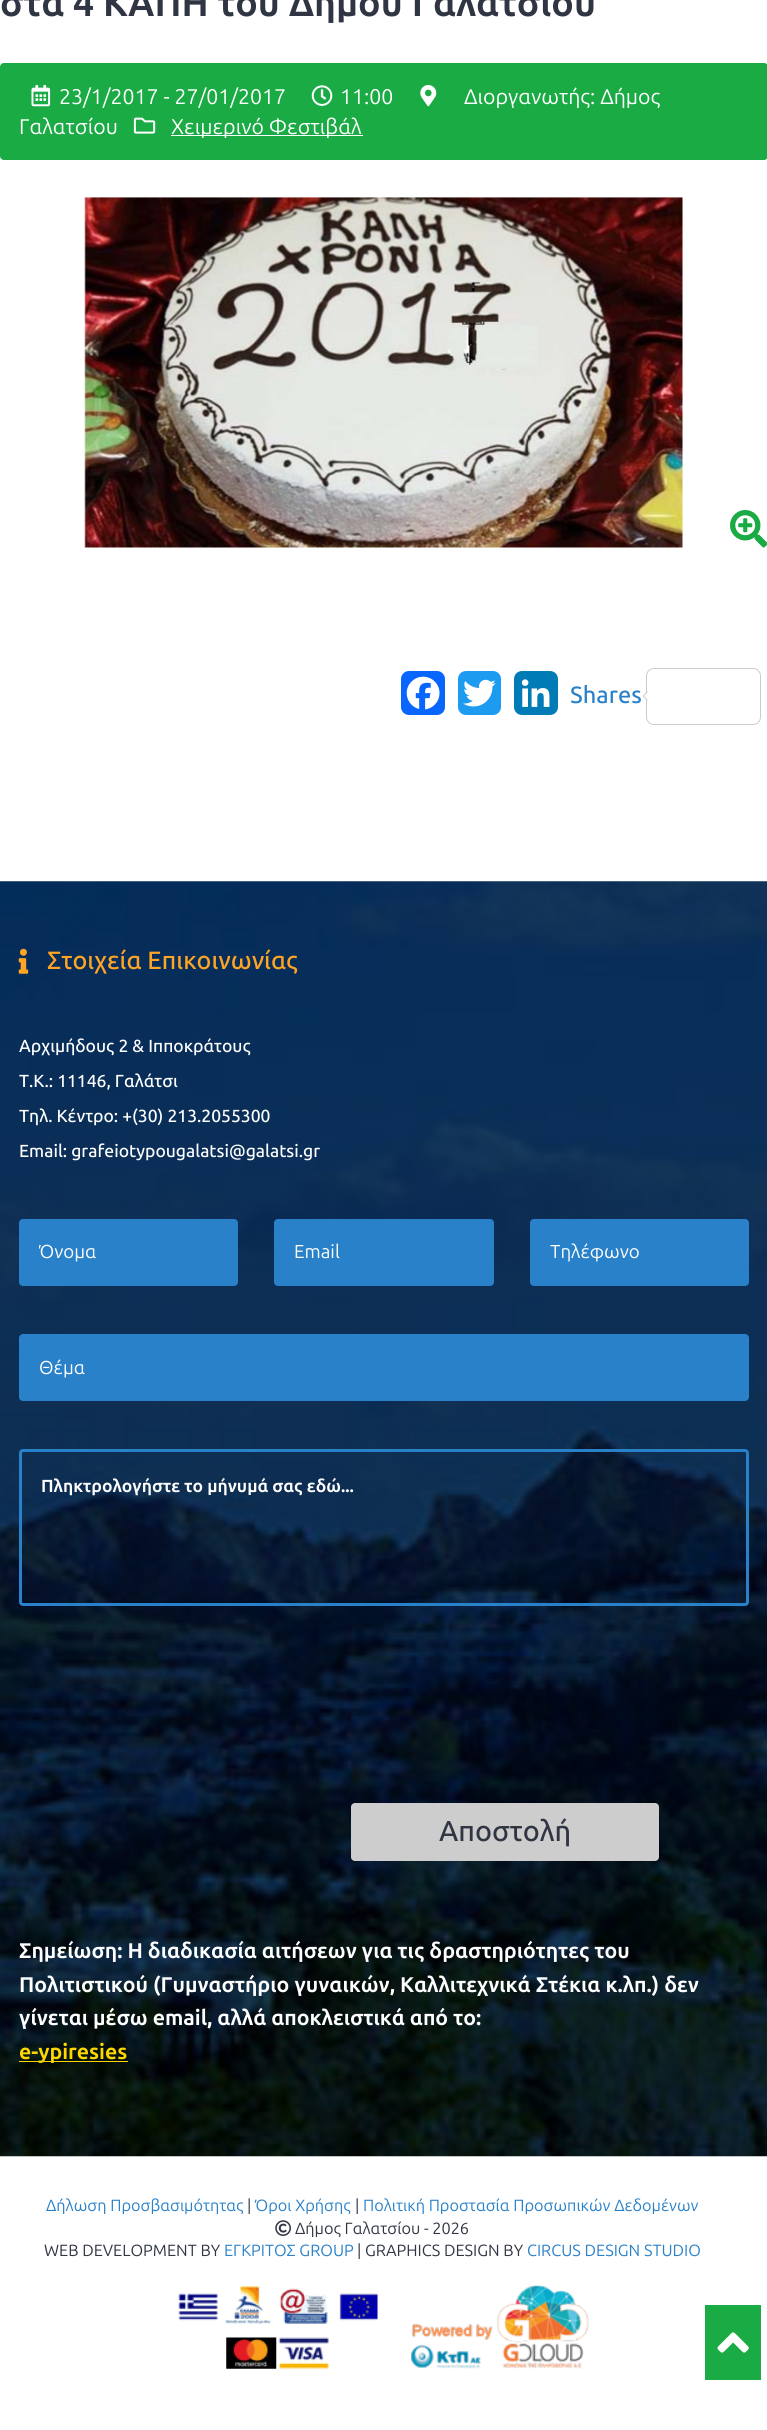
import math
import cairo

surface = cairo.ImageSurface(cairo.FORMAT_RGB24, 767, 2430)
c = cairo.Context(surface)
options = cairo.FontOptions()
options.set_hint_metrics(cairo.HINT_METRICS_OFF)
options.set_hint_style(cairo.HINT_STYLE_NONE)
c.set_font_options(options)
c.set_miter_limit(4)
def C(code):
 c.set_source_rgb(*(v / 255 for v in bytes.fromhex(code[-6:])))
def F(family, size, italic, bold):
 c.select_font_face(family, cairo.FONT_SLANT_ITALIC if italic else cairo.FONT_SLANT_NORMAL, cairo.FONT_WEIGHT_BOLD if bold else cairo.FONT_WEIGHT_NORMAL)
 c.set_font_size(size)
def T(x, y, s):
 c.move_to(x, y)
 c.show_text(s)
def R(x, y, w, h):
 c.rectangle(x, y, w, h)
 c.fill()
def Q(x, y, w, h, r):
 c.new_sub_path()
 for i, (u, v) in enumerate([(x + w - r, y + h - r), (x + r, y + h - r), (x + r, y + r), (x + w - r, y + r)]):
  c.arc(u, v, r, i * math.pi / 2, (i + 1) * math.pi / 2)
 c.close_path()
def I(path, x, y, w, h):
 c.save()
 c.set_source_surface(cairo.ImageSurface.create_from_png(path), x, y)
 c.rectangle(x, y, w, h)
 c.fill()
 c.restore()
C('ffffff')
c.paint()
F('Ubuntu',37.5,0,1)
C('2f3542')
T(0,16,'στα 4 ΚΑΠΗ του Δήμου Γαλατσίου')
C('1aab44')
Q(0,63,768,97,4)
c.fill()
I('1.png',31,85,20,22)
F('Ubuntu',21.25,0,0)
C('ffffff')
T(59,104,'23/1/2017 - 27/01/2017')
I('2.png',311,85,22,21)
T(340,104,'11:00')
I('3.png',420,85,17,22)
T(464,104,'Διοργανωτής: Δήμος')
T(19,134,'Γαλατσίου')
I('4.png',133,117,23,17)
R(171,135,192,1)
T(171,134,'Χειμερινό Φεστιβάλ')
I('5.png',84,197,599,351)
I('6.png',730,510,37,38)
C('0866ff')
Q(401,671,44,44,8)
c.fill()
I('7.png',406,676,34,34)
C('1d9bf0')
Q(458,671,43,44,8)
c.fill()
I('8.png',463,679,33,28)
C('007bb5')
Q(514,671,44,44,8)
c.fill()
I('9.png',521,679,29,28)
F('Ubuntu Medium',23.5,0,0)
C('2981c9')
T(570,703,'Shares')
Q(646.5,668.5,114,56,7.5)
C('cccccc')
c.set_line_width(1)
c.stroke()
c.new_path()
c.move_to(647.5,691)
c.line_to(647.5,701)
c.line_to(642.5,696)
c.close_path()
c.fill()
C('ffffff')
c.new_path()
c.move_to(649,691)
c.line_to(649,701)
c.line_to(644,696)
c.close_path()
c.fill()
I('10.png',0,881,767,1276)
I('11.png',18,948,11,26)
F('Ubuntu Medium',25,0,0)
C('ffa525')
T(47,969,'Στοιχεία Επικοινωνίας')
F('Ubuntu Medium',17.5,0,0)
C('ffffff')
T(19,1052,'Αρχιμήδους 2 & Ιπποκράτους')
T(19,1087,'Τ.Κ.: 11146, Γαλάτσι')
T(19,1122,'Τηλ. Κέντρο: +(30) 213.2055300')
T(19,1157,'Εmail: grafeiotypougalatsi@galatsi.gr')
C('2981c9')
Q(19,1219,219,67,4)
c.fill()
c.save()
c.rectangle(39,1241,179,22)
c.clip()
F('Ubuntu',18.75,0,0)
C('ffffff')
T(39,1258,'Όνομα')
c.restore()
Q(274,1219,220,67,4)
c.fill()
F('Ubuntu',18.75,0,0)
C('ffffff')
T(294,1258,'Email')
C('2981c9')
Q(530,1219,219,67,4)
c.fill()
C('ffffff')
T(550,1258,'Τηλέφωνο')
C('2981c9')
Q(19,1334,730,67,4)
c.fill()
C('ffffff')
T(39,1374,'Θέμα')
Q(20.5,1450.5,727,154,2.5)
C('2981c9')
c.set_line_width(3)
c.stroke()
F('Ubuntu',17.5,0,1)
C('ffffff')
T(41,1492,'Πληκτρολογήστε το μήνυμά σας εδώ...')
C('cdcdcd')
Q(351,1803,308,58,4)
c.fill()
F('Ubuntu Medium',28.75,0,0)
C('2f3542')
T(439,1841,'Αποστολή')
F('Ubuntu',21.25,0,1)
C('ffffff')
T(19,1958,'Σημείωση: Η διαδικασία αιτήσεων για τις δραστηριότητες του')
T(19,1992,'Πολιτιστικού (Γυμναστήριο γυναικών, Καλλιτεχνικά Στέκια κ.λπ.) δεν')
T(19,2025,'γίνεται μέσω email, αλλά αποκλειστικά από το:')
C('ffd700')
R(19,2061,109,1)
T(19,2059,'e-ypiresies')
F('Ubuntu',16.25,0,0)
C('2981c9')
T(46,2211,'Δήλωση Προσβασιμότητας')
C('2f3542')
T(247,2211,'|')
C('2981c9')
T(255,2211,'Όροι Χρήσης')
C('2f3542')
T(355,2211,'|')
C('2981c9')
T(363,2211,'Πολιτική Προστασία Προσωπικών Δεδομένων')
I('12.png',275,2220,16,16)
C('2f3542')
T(295,2234,'Δήμος Γαλατσίου - 2026')
T(44,2256,'WEB DEVELOPMENT BY')
C('2981c9')
T(224,2256,'ΕΓΚΡΙΤΟΣ GROUP')
C('2f3542')
T(357,2256,'| GRAPHICS DESIGN BY')
C('2981c9')
T(527,2256,'CIRCUS DESIGN STUDIO')
I('13.png',178,2286,201,38)
I('14.png',226,2337,51,32)
I('15.png',278,2337,51,32)
I('16.png',411,2285,178,84)
C('1aab44')
R(705,2305,56,75)
I('17.png',717,2332,32,21)
surface.write_to_png('o.png')
